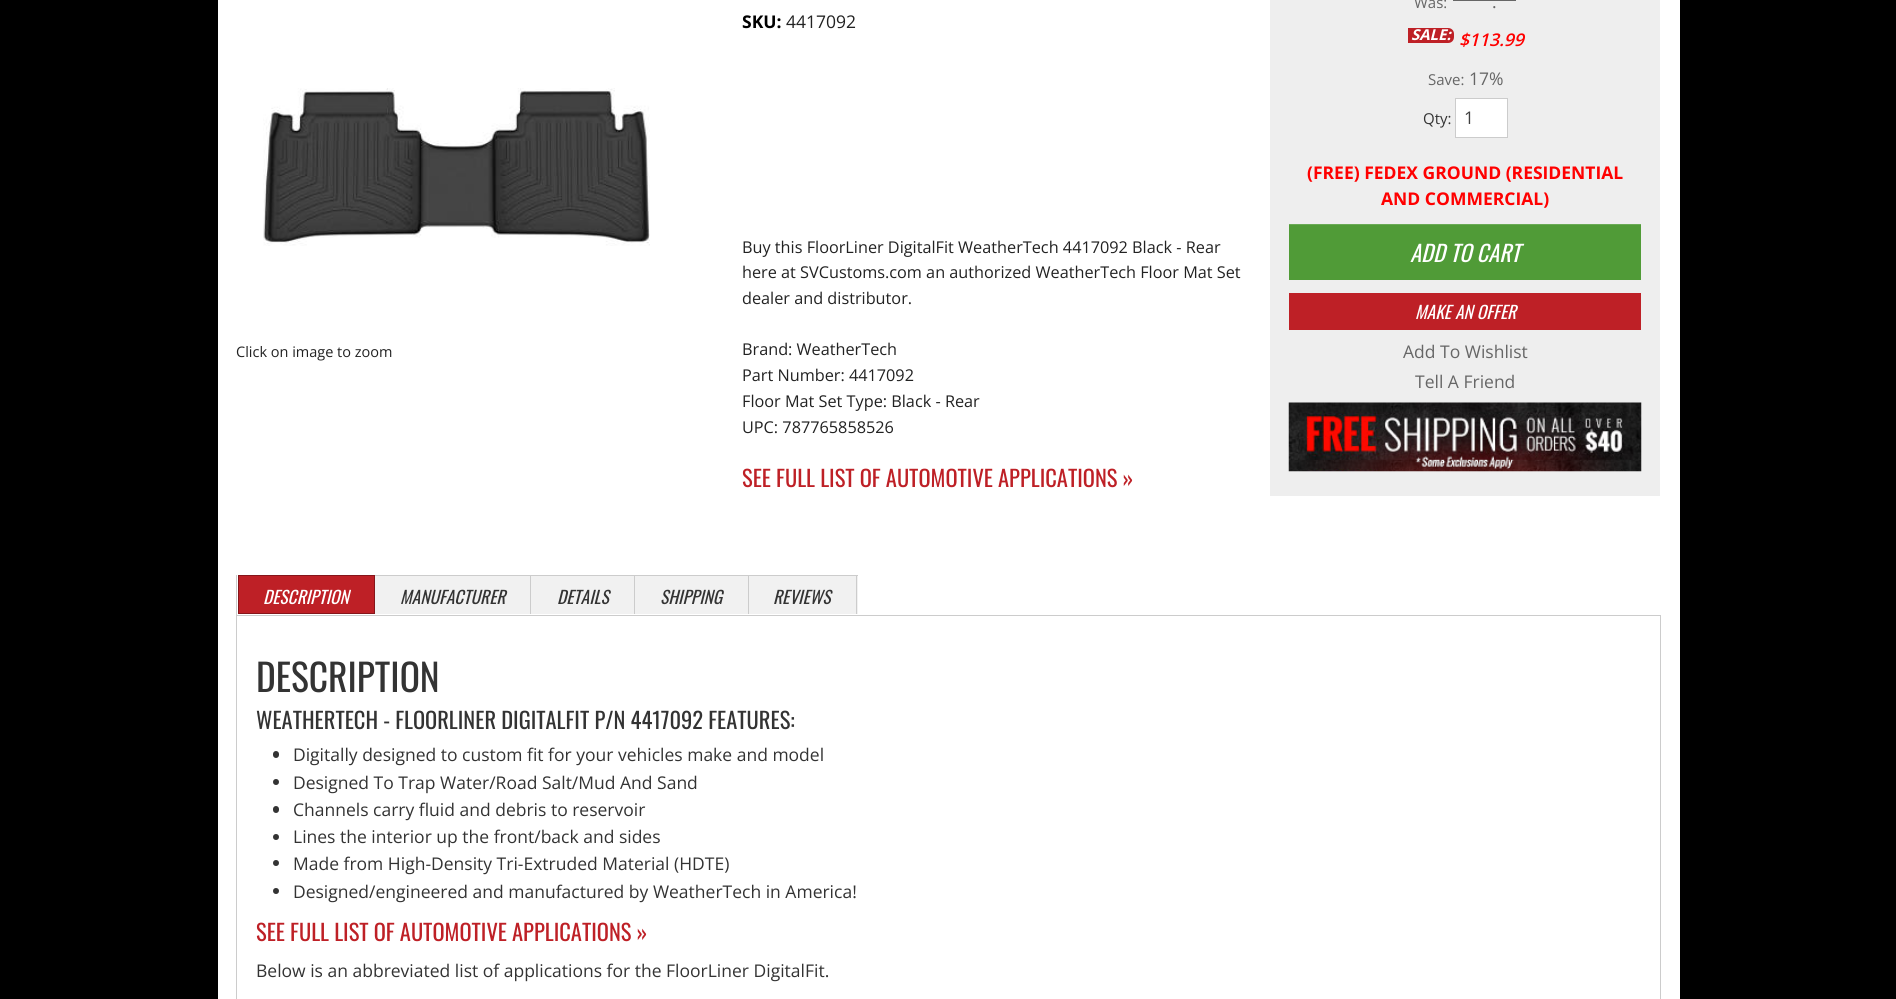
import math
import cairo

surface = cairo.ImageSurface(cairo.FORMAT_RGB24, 1896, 999)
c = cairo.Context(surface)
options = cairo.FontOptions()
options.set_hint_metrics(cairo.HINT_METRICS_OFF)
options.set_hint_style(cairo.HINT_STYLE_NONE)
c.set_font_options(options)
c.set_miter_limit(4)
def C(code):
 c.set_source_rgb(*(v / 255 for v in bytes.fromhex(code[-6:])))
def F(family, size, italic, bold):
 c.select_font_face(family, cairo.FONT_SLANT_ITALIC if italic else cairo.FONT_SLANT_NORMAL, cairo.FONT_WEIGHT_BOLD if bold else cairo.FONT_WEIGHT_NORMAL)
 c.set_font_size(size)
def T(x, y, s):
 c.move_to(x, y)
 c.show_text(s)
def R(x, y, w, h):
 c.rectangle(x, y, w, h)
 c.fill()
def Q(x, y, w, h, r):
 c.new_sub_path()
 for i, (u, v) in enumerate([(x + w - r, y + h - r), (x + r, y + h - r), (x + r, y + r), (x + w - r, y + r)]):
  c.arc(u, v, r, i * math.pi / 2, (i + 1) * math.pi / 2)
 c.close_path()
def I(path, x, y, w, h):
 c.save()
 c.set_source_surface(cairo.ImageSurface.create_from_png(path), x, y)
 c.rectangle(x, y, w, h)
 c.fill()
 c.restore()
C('000000')
c.paint()
C('ffffff')
R(218,0,1462,999)
I('1.png',263,88,387,158)
F('Open Sans',14.5,0,0)
C('222222')
T(236,357,'Click on image to zoom')
F('Open Sans',17.5,0,1)
C('000000')
T(742,28,'SKU:')
F('Open Sans',17.5,0,0)
C('222222')
T(786,28,'4417092')
F('Open Sans',16.25,0,0)
T(742,253,'Buy this FloorLiner DigitalFit WeatherTech 4417092 Black - Rear')
T(742,278,'here at SVCustoms.com an authorized WeatherTech Floor Mat Set')
T(742,304,'dealer and distributor.')
T(742,355,'Brand: WeatherTech')
T(742,381,'Part Number: 4417092')
T(742,407,'Floor Mat Set Type: Black - Rear')
T(742,433,'UPC: 787765858526')
F('Oswald',22.5,0,0)
C('be2026')
T(742,487,'SEE FULL LIST OF AUTOMOTIVE APPLICATIONS »')
C('eeeeee')
R(1270,0,390,496)
F('Open Sans',15,0,0)
C('666666')
T(1414,8,'Was:')
F('Open Sans',17.5,0,0)
T(1492,8,'.')
R(1453,0,63,1)
C('be2026')
c.new_path()
c.move_to(1408,28)
c.line_to(1448,28)
c.curve_to(1451.5,28,1454,30.5,1454,34)
c.line_to(1454,37)
c.curve_to(1454,40.5,1451.5,43,1448,43)
c.line_to(1408,43)
c.close_path()
c.fill()
F('Open Sans',15,1,1)
C('ffffff')
T(1411,40,'SALE:')
F('Open Sans SemiBold',17.5,1,0)
C('ff0000')
T(1459,46,'$113.99')
F('Open Sans',15,0,0)
C('666666')
T(1428,85,'Save:')
F('Open Sans',17.5,0,0)
T(1469,85,'17%')
F('Open Sans',15,0,0)
C('333333')
T(1423,124,'Qty:')
C('ffffff')
c.rectangle(1455.5,98.5,52,39)
c.fill_preserve()
C('cccccc')
c.set_line_width(1)
c.stroke()
F('Open Sans',17.5,0,0)
C('404040')
T(1464,124,'1')
F('Open Sans',17.5,0,1)
C('ff0000')
T(1307,179,'(FREE) FEDEX GROUND (RESIDENTIAL')
T(1381,205,'AND COMMERCIAL)')
C('509b37')
R(1289,225,352,55)
C('6aaa55')
R(1289,224,352,1)
F('Oswald',22.5,1,0)
C('ffffff')
T(1410,262,'ADD TO CART')
C('be2026')
R(1289,293,352,37)
F('Oswald',17.5,1,0)
C('ffffff')
T(1415,319,'MAKE AN OFFER')
F('Open Sans',17.5,0,0)
C('666666')
T(1403,358,'Add To Wishlist')
T(1415,388,'Tell A Friend')
I('2.png',1288,402,354,70)
C('cccccc')
R(236,575,1,40)
C('be2026')
c.rectangle(238.5,575.5,136,38)
c.fill_preserve()
C('85161b')
c.stroke()
F('Oswald',17.5,1,0)
C('ffffff')
T(263,604,'DESCRIPTION')
C('f1f1f1')
R(375,576,155,38)
C('cccccc')
R(375,575,483,1)
R(530,575,1,39)
C('333333')
T(400,604,'MANUFACTURER')
C('f1f1f1')
R(531,576,103,38)
C('cccccc')
R(634,575,1,39)
C('333333')
T(557,604,'DETAILS')
C('f1f1f1')
R(635,576,113,38)
C('cccccc')
R(748,575,1,39)
C('333333')
T(660,604,'SHIPPING')
C('f1f1f1')
R(749,576,109,38)
C('cccccc')
R(856,575,1,39)
C('333333')
T(773,604,'REVIEWS')
c.rectangle(236.5,615.5,1424,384)
C('cccccc')
c.stroke()
F('Oswald',37.5,0,0)
C('333333')
T(256,692,'DESCRIPTION')
F('Oswald',22.5,0,0)
T(256,729,'WEATHERTECH - FLOORLINER DIGITALFIT P/N 4417092 FEATURES:')
Q(273,751,6,7,3)
c.fill()
F('Open Sans',17.5,0,0)
T(293,761,'Digitally designed to custom fit for your vehicles make and model')
c.new_path()
c.arc(276,782,3,0,2 * math.pi)
c.fill()
T(293,789,'Designed To Trap Water/Road Salt/Mud And Sand')
Q(273,806,6,7,3)
c.fill()
T(293,816,'Channels carry fluid and debris to reservoir')
c.new_path()
c.arc(276,837,3,0,2 * math.pi)
c.fill()
T(293,843,'Lines the interior up the front/back and sides')
c.new_path()
c.arc(276,863,3,0,2 * math.pi)
c.fill()
T(293,870,'Made from High-Density Tri-Extruded Material (HDTE)')
c.new_path()
c.arc(276,891,3,0,2 * math.pi)
c.fill()
T(293,898,'Designed/engineered and manufactured by WeatherTech in America!')
F('Oswald',22.5,0,0)
C('be2026')
T(256,941,'SEE FULL LIST OF AUTOMOTIVE APPLICATIONS »')
F('Open Sans',17.5,0,0)
C('333333')
T(256,977,'Below is an abbreviated list of applications for the FloorLiner DigitalFit.')
surface.write_to_png('o.png')
